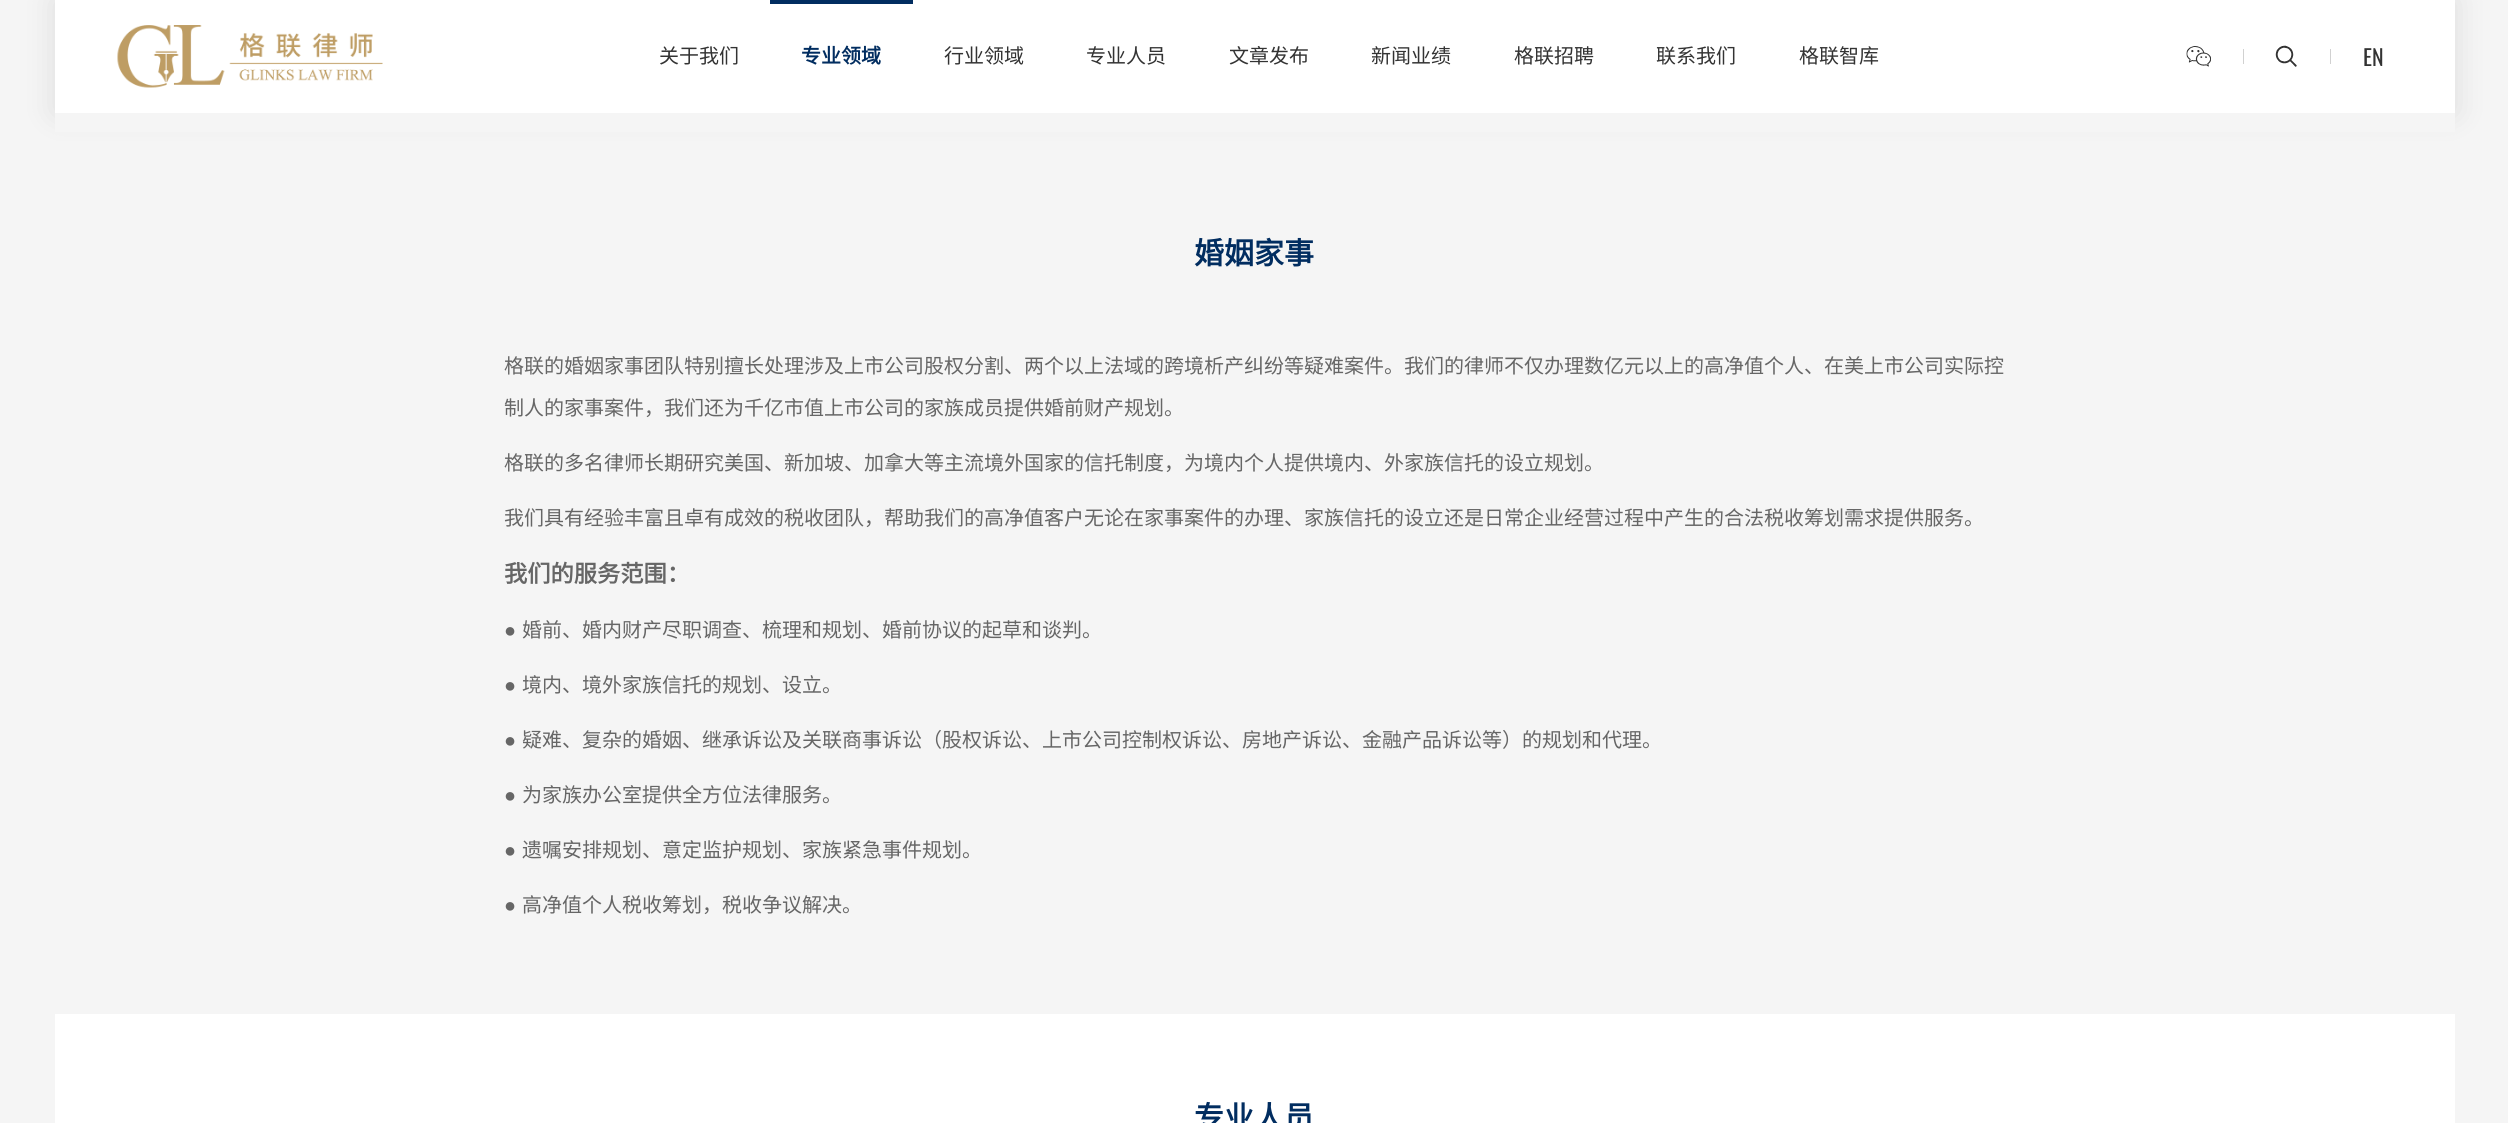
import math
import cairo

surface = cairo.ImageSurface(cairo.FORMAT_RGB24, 2508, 1123)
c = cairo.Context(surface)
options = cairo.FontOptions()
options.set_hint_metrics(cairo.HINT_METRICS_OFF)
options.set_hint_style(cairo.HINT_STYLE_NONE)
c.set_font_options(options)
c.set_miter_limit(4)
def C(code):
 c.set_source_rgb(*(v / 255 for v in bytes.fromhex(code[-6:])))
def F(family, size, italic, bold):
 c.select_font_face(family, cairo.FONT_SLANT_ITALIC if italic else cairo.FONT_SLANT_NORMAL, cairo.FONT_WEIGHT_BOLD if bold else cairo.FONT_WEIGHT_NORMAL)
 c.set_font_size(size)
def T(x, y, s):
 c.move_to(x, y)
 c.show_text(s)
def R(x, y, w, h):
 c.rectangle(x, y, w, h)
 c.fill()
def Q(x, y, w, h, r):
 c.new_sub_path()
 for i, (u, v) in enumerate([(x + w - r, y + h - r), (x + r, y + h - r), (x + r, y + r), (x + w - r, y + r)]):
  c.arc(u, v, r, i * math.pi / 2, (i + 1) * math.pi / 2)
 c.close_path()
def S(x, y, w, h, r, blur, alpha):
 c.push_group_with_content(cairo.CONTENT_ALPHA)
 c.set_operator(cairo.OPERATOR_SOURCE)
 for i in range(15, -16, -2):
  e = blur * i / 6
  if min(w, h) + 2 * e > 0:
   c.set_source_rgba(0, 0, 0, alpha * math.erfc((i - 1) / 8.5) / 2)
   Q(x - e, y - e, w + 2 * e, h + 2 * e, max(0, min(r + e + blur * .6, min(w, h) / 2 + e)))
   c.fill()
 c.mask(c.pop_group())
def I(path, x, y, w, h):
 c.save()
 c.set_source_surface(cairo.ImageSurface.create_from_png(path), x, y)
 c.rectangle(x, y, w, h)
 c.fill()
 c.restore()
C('f5f5f5')
c.paint()
C('ffffff')
R(55,1014,2400,109)
C('000000')
S(55,0,2400,113,0,15.5,.1)
C('ffffff')
R(55,0,2400,113)
I('1.png',117,25,266,63)
F('Noto Sans CJK SC',20,0,0)
C('333333')
T(659,63,'关于我们')
C('012d60')
R(770,0,143,4)
F('Noto Sans CJK SC',20,0,1)
T(801,63,'专业领域')
F('Noto Sans CJK SC',20,0,0)
C('333333')
T(944,63,'行业领域')
T(1086,63,'专业人员')
T(1229,63,'文章发布')
T(1371,63,'新闻业绩')
T(1514,63,'格联招聘')
T(1656,63,'联系我们')
T(1799,63,'格联智库')
I('2.png',2186,46,25,21)
C('d1d1d1')
R(2243,49,1,15)
I('3.png',2275,45,22,22)
R(2330,49,1,15)
F('Oswald',22,0,0)
C('333333')
T(2363,66,'EN')
C('f5f5f5')
R(55,113,2400,19)
F('Noto Sans CJK SC',30,0,1)
C('012d60')
T(1194,264,'婚姻家事')
F('Noto Sans CJK SC',20,0,0)
C('666666')
T(504,373,'格联的婚姻家事团队特别擅长处理涉及上市公司股权分割、两个以上法域的跨境析产纠纷等疑难案件。我们的律师不仅办理数亿元以上的高净值个人、在美上市公司实际控')
T(504,415,'制人的家事案件，我们还为千亿市值上市公司的家族成员提供婚前财产规划。')
T(504,470,'格联的多名律师长期研究美国、新加坡、加拿大等主流境外国家的信托制度，为境内个人提供境内、外家族信托的设立规划。')
T(504,525,'我们具有经验丰富且卓有成效的税收团队，帮助我们的高净值客户无论在家事案件的办理、家族信托的设立还是日常企业经营过程中产生的合法税收筹划需求提供服务。')
F('Noto Sans CJK SC',23.25,0,1)
T(504,582,'我们的服务范围：')
F('Liberation Sans',20,0,0)
T(504,637,'●')
F('Noto Sans CJK SC',20,0,0)
T(522,637,'婚前、婚内财产尽职调查、梳理和规划、婚前协议的起草和谈判。')
F('Liberation Sans',20,0,0)
T(504,692,'●')
F('Noto Sans CJK SC',20,0,0)
T(522,692,'境内、境外家族信托的规划、设立。')
F('Liberation Sans',20,0,0)
T(504,747,'●')
F('Noto Sans CJK SC',20,0,0)
T(522,747,'疑难、复杂的婚姻、继承诉讼及关联商事诉讼（股权诉讼、上市公司控制权诉讼、房地产诉讼、金融产品诉讼等）的规划和代理。')
F('Liberation Sans',20,0,0)
T(504,802,'●')
F('Noto Sans CJK SC',20,0,0)
T(522,802,'为家族办公室提供全方位法律服务。')
F('Liberation Sans',20,0,0)
T(504,857,'●')
F('Noto Sans CJK SC',20,0,0)
T(522,857,'遗嘱安排规划、意定监护规划、家族紧急事件规划。')
F('Liberation Sans',20,0,0)
T(504,912,'●')
F('Noto Sans CJK SC',20,0,0)
T(522,912,'高净值个人税收筹划，税收争议解决。')
F('Noto Sans CJK SC',30,0,1)
C('012d60')
T(1194,1128,'专业人员')
surface.write_to_png('o.png')
